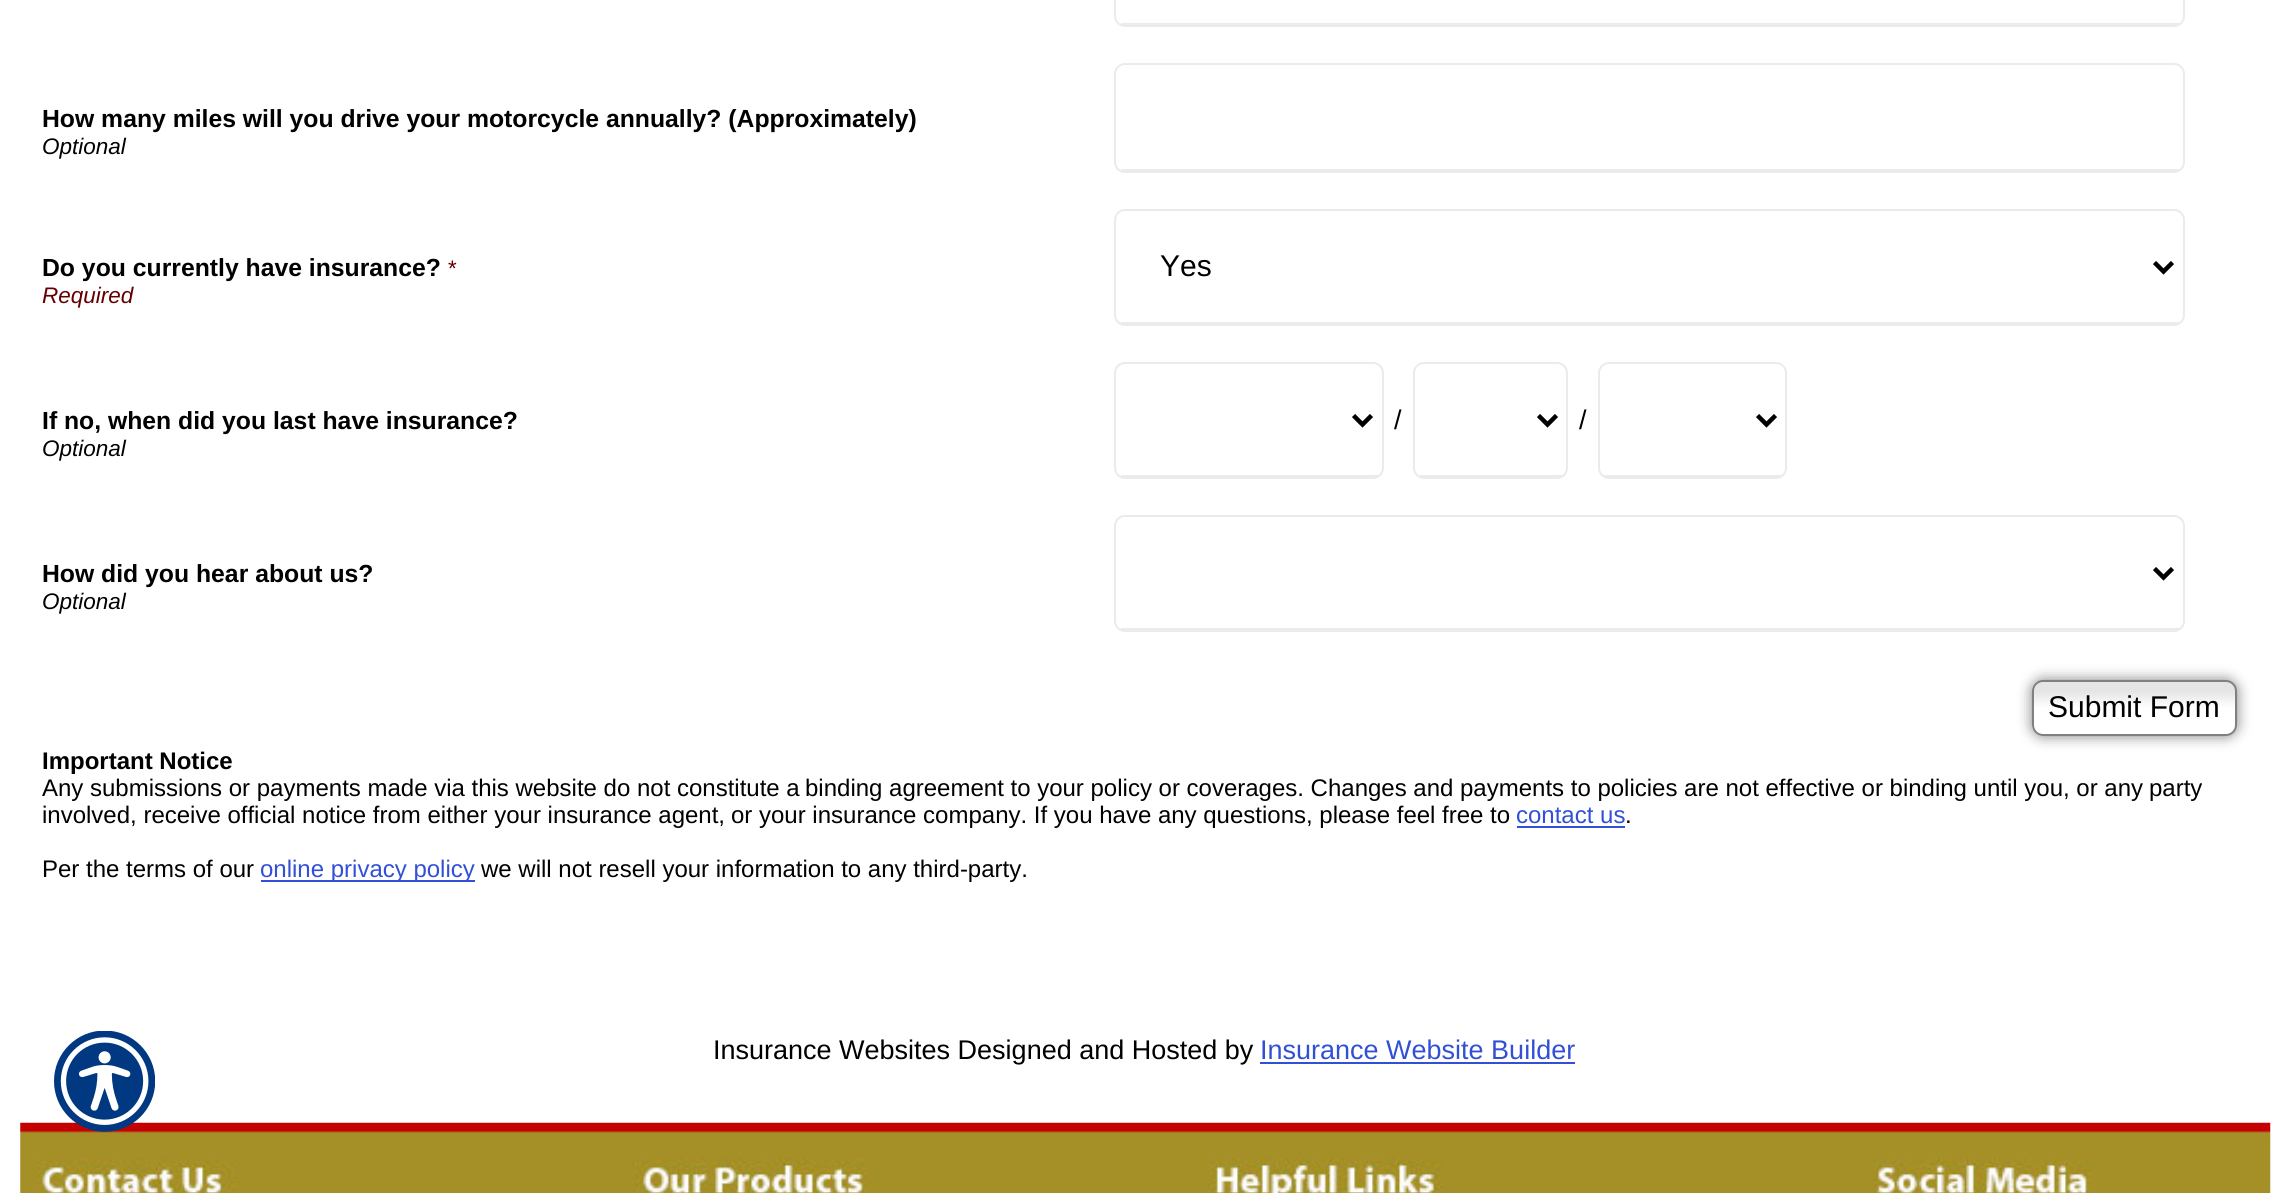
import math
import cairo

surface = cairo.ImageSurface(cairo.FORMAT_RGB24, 2287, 1193)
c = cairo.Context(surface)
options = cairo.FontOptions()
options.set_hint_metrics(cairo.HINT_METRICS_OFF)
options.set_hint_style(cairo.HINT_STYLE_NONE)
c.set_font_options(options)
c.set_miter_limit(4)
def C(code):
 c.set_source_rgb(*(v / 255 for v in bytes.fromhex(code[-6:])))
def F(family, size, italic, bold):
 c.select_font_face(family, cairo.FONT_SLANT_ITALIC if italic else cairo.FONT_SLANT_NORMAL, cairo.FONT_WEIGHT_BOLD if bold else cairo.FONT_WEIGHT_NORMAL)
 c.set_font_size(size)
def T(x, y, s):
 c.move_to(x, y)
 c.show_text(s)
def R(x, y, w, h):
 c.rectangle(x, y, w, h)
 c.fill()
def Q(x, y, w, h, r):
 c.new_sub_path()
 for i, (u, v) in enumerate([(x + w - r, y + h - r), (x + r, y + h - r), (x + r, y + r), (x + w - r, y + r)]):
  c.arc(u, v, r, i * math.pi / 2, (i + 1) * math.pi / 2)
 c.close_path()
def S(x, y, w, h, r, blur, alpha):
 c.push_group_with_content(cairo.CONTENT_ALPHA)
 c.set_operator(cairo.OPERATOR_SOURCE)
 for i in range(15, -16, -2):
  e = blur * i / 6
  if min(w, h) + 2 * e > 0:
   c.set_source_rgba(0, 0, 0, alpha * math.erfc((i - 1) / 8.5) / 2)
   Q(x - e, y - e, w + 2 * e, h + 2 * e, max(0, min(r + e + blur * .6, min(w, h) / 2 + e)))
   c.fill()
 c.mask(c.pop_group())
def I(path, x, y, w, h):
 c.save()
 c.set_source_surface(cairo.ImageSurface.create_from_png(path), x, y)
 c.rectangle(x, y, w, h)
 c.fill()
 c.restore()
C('ffffff')
c.paint()
Q(1115,-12,1069,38,10)
C('ebebeb')
c.stroke()
R(1121,23,1059,2)
F('Liberation Sans',24.75,0,1)
C('000000')
T(42,127,'How many miles will you drive your motorcycle annually? (Approximately)')
F('Liberation Sans',22.5,1,0)
T(42,154,'Optional')
Q(1115,64,1069,108,10)
C('ebebeb')
c.stroke()
R(1121,169,1059,2)
F('Liberation Sans',24.75,0,1)
C('000000')
T(42,276,'Do you currently have insurance?')
F('Liberation Sans',22.5,1,0)
C('660000')
T(42,303,'Required')
T(447,276,'*')
Q(1115,210,1069,115,10)
C('ebebeb')
c.stroke()
R(1121,322,1059,2)
c.new_path()
c.move_to(2154.5,262.5)
c.line_to(2163.5,271.5)
c.line_to(2172.5,262.5)
C('000000')
c.set_line_width(4.5)
c.stroke()
F('Liberation Sans',30,0,0)
T(1160,276,'Yes')
F('Liberation Sans',24.75,0,1)
T(42,429,'If no, when did you last have insurance?')
F('Liberation Sans',22.5,1,0)
T(42,456,'Optional')
Q(1115,363,268,115,10)
C('ebebeb')
c.set_line_width(2)
c.stroke()
R(1121,475,258,2)
c.new_path()
c.move_to(1353.5,415.5)
c.line_to(1362.5,424.5)
c.line_to(1371.5,415.5)
C('000000')
c.set_line_width(4.5)
c.stroke()
F('Liberation Sans',27,0,0)
T(1394,429,'/')
Q(1414,363,153,115,10)
C('ebebeb')
c.set_line_width(2)
c.stroke()
R(1420,475,144,2)
c.new_path()
c.move_to(1538.5,415.5)
c.line_to(1547.5,424.5)
c.line_to(1556.5,415.5)
C('000000')
c.set_line_width(4.5)
c.stroke()
T(1579,429,'/')
Q(1599,363,187,115,10)
C('ebebeb')
c.set_line_width(2)
c.stroke()
R(1604,475,178,2)
c.new_path()
c.move_to(1757.5,415.5)
c.line_to(1766.5,424.5)
c.line_to(1775.5,415.5)
C('000000')
c.set_line_width(4.5)
c.stroke()
F('Liberation Sans',24.75,0,1)
T(42,582,'How did you hear about us?')
F('Liberation Sans',22.5,1,0)
T(42,609,'Optional')
Q(1115,516,1069,115,10)
C('ebebeb')
c.set_line_width(2)
c.stroke()
R(1121,628,1059,2)
c.new_path()
c.move_to(2154.5,568.5)
c.line_to(2163.5,577.5)
c.line_to(2172.5,568.5)
C('000000')
c.set_line_width(4.5)
c.stroke()
C('808080')
S(2032,680,205,56,11,7,1)
I('1.png',2032,681,205,55)
Q(2033,681,203,54,10)
C('808080')
c.set_line_width(2)
c.stroke()
F('Liberation Sans',30,0,0)
C('000000')
T(2048,717,'Submit Form')
F('Liberation Sans',24,0,1)
T(42,769,'Important Notice')
F('Liberation Sans',24,0,0)
T(42,796,'Any submissions or payments made via this website do not constitute a')
T(805,796,'binding agreement to your policy or coverages. Changes and')
T(1460,796,'payments to policies are not effective or binding until you, or any')
T(2149,796,'party')
T(42,823,'involved, receive official notice from either your insurance agent,')
T(731,823,'or your insurance company. If you have any questions, please feel free to')
C('3250d6')
T(1516,823,'contact us')
R(1517,826,108,2)
C('000000')
T(1625,823,'.')
T(42,877,'Per the terms of our')
C('3250d6')
R(261,880,214,2)
T(260,877,'online privacy policy')
C('000000')
T(481,877,'we will not resell your information to any third-party.')
F('Liberation Sans',27,0,0)
T(713,1059,'Insurance Websites Designed and Hosted by')
C('3250d6')
T(1260,1059,'Insurance Website Builder')
R(1260,1062,315,2)
I('2.png',20,1122,2251,71)
I('3.png',54,1031,101,101)
surface.write_to_png('o.png')
